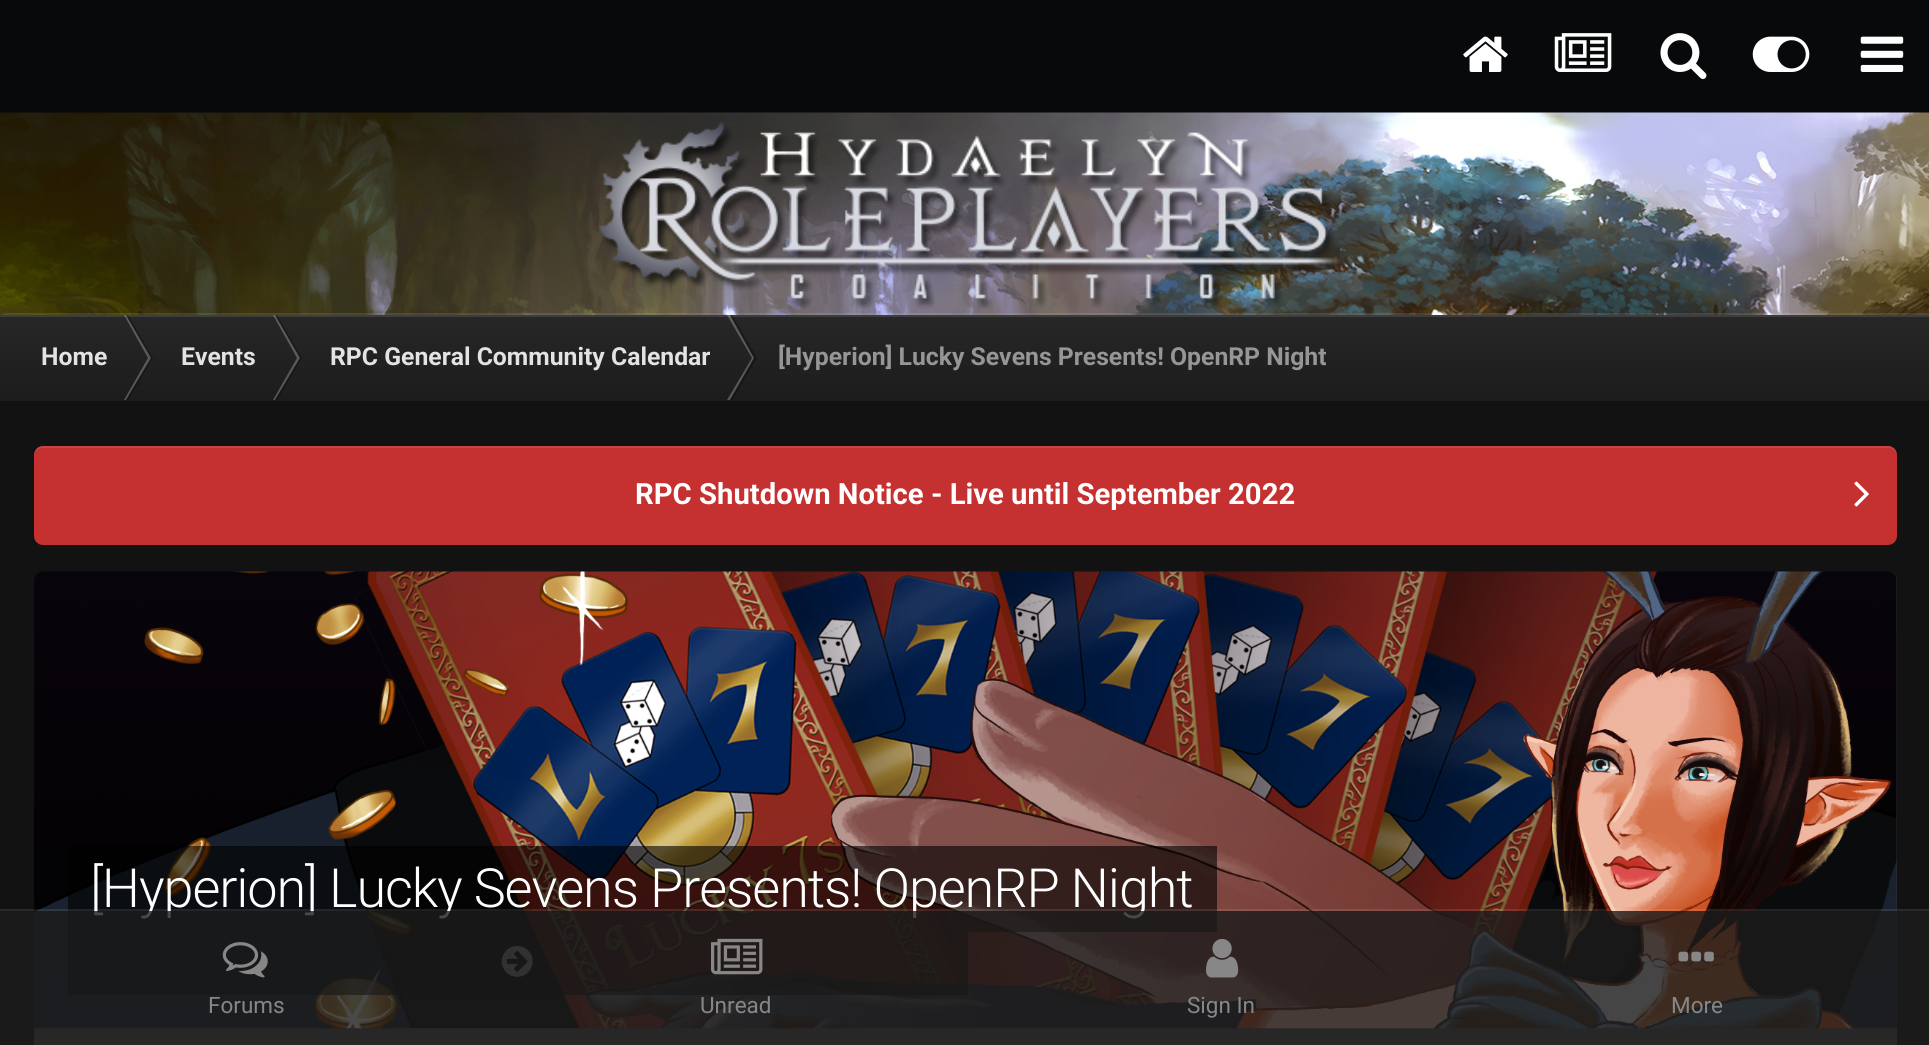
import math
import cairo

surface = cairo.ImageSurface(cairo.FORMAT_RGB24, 1929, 1045)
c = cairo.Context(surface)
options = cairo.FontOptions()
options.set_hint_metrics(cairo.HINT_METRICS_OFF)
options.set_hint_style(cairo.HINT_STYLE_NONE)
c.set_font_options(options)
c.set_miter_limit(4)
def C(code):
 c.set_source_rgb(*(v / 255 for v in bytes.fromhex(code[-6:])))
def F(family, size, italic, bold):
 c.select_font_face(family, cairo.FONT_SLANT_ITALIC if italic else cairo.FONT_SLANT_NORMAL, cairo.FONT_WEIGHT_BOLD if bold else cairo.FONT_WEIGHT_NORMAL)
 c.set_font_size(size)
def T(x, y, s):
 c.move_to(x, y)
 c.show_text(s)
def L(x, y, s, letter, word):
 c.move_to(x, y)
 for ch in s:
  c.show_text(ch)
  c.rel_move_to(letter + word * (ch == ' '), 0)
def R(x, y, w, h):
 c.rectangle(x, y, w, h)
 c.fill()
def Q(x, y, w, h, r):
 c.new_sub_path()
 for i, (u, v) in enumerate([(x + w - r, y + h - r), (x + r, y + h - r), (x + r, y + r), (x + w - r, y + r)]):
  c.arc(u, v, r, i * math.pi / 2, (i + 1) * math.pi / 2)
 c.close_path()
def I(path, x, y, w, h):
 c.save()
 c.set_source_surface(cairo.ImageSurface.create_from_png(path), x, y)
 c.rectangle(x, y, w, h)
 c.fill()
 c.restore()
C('07090a')
c.paint()
I('1.png',1463,36,45,36)
I('2.png',1554,33,58,39)
I('3.png',1660,33,47,46)
I('4.png',1752,36,58,36)
I('5.png',1860,36,44,36)
I('6.png',0,112,1929,203)
I('7.png',598,122,745,187)
Q(-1,314,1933,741,8)
c.set_source_rgba(1,1,1,0.1)
c.stroke()
C('121212')
R(0,401,1929,644)
gradient = cairo.LinearGradient(965,315,965,401)
gradient.add_color_stop_rgba(0,0.153,0.153,0.153,1)
gradient.add_color_stop_rgba(1,0.11,0.11,0.11,1)
c.set_source(gradient)
R(0,317,1929,84)
C('3d3d3d')
R(0,315,1929,2)
F('Roboto',24.75,0,1)
C('e3e3e3')
T(41,365,'Home')
c.set_source_rgba(1,1,1,0.25)
c.new_path()
c.move_to(124,315)
c.line_to(126,315)
c.line_to(151,358)
c.line_to(148,358)
c.close_path()
c.fill()
c.set_source_rgba(0,0,0,0.3)
c.new_path()
c.move_to(126,315)
c.line_to(128,315)
c.line_to(153,358)
c.line_to(151,358)
c.close_path()
c.fill()
c.set_source_rgba(1,1,1,0.25)
c.new_path()
c.move_to(124,400)
c.line_to(126,400)
c.line_to(151,358)
c.line_to(148,358)
c.close_path()
c.fill()
c.set_source_rgba(0,0,0,0.3)
c.new_path()
c.move_to(126,400)
c.line_to(128,400)
c.line_to(153,358)
c.line_to(151,358)
c.close_path()
c.fill()
C('e3e3e3')
T(181,365,'Events')
c.set_source_rgba(1,1,1,0.25)
c.new_path()
c.move_to(273,315)
c.line_to(275,315)
c.line_to(300,358)
c.line_to(297,358)
c.close_path()
c.fill()
c.set_source_rgba(0,0,0,0.3)
c.new_path()
c.move_to(275,315)
c.line_to(277,315)
c.line_to(302,358)
c.line_to(300,358)
c.close_path()
c.fill()
c.set_source_rgba(1,1,1,0.25)
c.new_path()
c.move_to(273,400)
c.line_to(275,400)
c.line_to(300,358)
c.line_to(297,358)
c.close_path()
c.fill()
c.set_source_rgba(0,0,0,0.3)
c.new_path()
c.move_to(275,400)
c.line_to(277,400)
c.line_to(302,358)
c.line_to(300,358)
c.close_path()
c.fill()
C('e3e3e3')
T(330,365,'RPC General Community Calendar')
c.set_source_rgba(1,1,1,0.25)
c.new_path()
c.move_to(727,315)
c.line_to(730,315)
c.line_to(754,358)
c.line_to(752,358)
c.close_path()
c.fill()
c.set_source_rgba(0,0,0,0.3)
c.new_path()
c.move_to(730,315)
c.line_to(732,315)
c.line_to(757,358)
c.line_to(754,358)
c.close_path()
c.fill()
c.set_source_rgba(1,1,1,0.25)
c.new_path()
c.move_to(727,400)
c.line_to(730,400)
c.line_to(754,358)
c.line_to(752,358)
c.close_path()
c.fill()
c.set_source_rgba(0,0,0,0.3)
c.new_path()
c.move_to(730,400)
c.line_to(732,400)
c.line_to(757,358)
c.line_to(754,358)
c.close_path()
c.fill()
C('969696')
T(778,365,'[Hyperion] Lucky Sevens Presents! OpenRP Night')
C('c53030')
Q(34,446,1863,99,9)
c.fill()
c.set_source_rgba(1,1,1,0.1)
c.new_path()
c.move_to(43,448)
c.line_to(1888,448)
c.curve_to(1893,448,1897,452,1897,457)
c.curve_to(1897,451,1894,446,1888,446)
c.line_to(43,446)
c.curve_to(37,446,34,451,34,457)
c.curve_to(34,452,38,448,43,448)
c.close_path()
c.fill()
F('Roboto',29.25,0,1)
C('ffffff')
T(635,504,'RPC Shutdown Notice - Live until September 2022')
I('8.png',1854,481,15,26)
C('333333')
c.new_path()
c.move_to(43,572)
c.line_to(1888,572)
c.curve_to(1893,572,1897,576,1897,581)
c.line_to(1897,1028)
c.line_to(34,1028)
c.line_to(34,581)
c.curve_to(34,576,38,572,43,572)
c.close_path()
c.fill()
C('545454')
R(34,1028,1863,17)
I('9.png',34,571,1863,458)
c.set_source_rgba(0,0,0,0.6)
R(68,846,1149,86)
F('Roboto Light',54,0,0)
C('ffffff')
L(90,907,'[Hyperion] Lucky Sevens Presents! OpenRP Night',-1.1,0)
c.set_source_rgba(0,0,0,0.6)
R(68,932,900,63)
I('10.png',501,946,32,31)
c.set_source_rgba(1,1,1,0.1)
c.new_path()
c.move_to(0,909)
c.line_to(0,911)
c.line_to(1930,911)
c.line_to(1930,1044)
c.line_to(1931,1044)
c.line_to(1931,909)
c.close_path()
c.fill()
c.set_source_rgba(0.11,0.11,0.11,0.8)
R(0,911,1929,134)
I('11.png',222,942,46,36)
F('Roboto',22.5,0,0)
C('878787')
T(208,1013,'Forums')
I('12.png',711,938,52,37)
T(700,1013,'Unread')
I('13.png',1206,938,33,40)
T(1187,1013,'Sign In')
I('14.png',1678,951,36,11)
T(1671,1013,'More')
surface.write_to_png('o.png')
